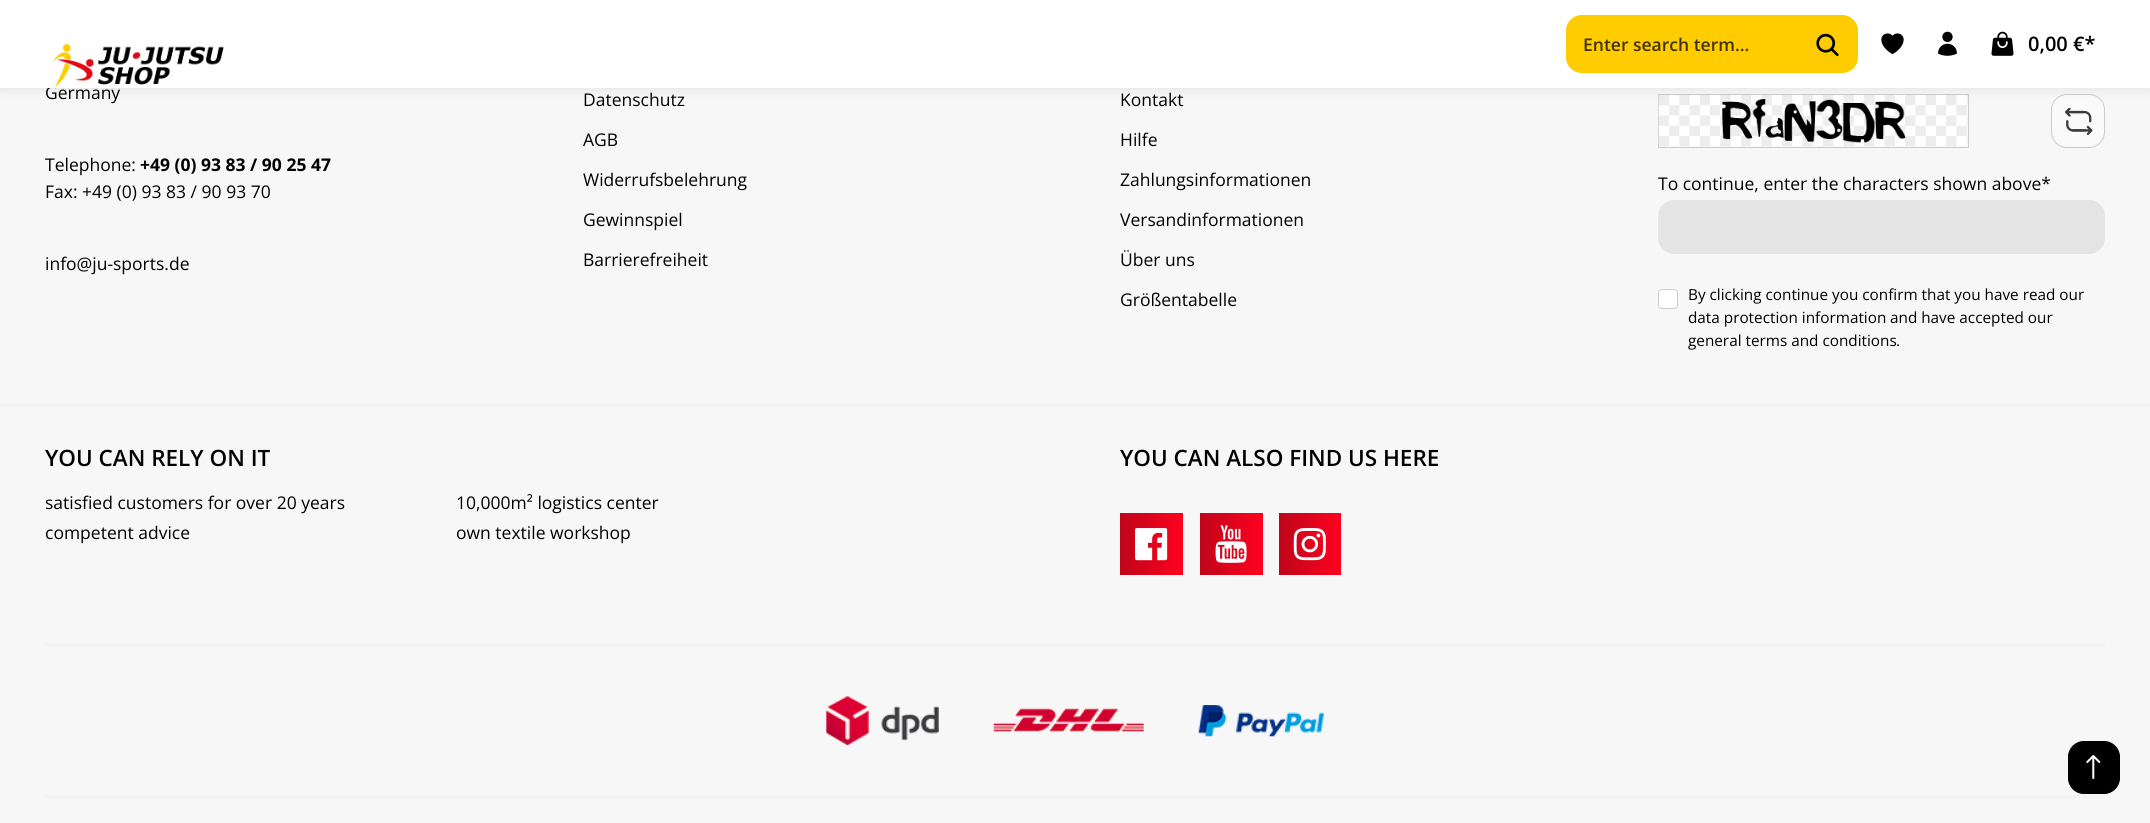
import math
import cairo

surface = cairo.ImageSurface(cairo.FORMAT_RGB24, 2150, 823)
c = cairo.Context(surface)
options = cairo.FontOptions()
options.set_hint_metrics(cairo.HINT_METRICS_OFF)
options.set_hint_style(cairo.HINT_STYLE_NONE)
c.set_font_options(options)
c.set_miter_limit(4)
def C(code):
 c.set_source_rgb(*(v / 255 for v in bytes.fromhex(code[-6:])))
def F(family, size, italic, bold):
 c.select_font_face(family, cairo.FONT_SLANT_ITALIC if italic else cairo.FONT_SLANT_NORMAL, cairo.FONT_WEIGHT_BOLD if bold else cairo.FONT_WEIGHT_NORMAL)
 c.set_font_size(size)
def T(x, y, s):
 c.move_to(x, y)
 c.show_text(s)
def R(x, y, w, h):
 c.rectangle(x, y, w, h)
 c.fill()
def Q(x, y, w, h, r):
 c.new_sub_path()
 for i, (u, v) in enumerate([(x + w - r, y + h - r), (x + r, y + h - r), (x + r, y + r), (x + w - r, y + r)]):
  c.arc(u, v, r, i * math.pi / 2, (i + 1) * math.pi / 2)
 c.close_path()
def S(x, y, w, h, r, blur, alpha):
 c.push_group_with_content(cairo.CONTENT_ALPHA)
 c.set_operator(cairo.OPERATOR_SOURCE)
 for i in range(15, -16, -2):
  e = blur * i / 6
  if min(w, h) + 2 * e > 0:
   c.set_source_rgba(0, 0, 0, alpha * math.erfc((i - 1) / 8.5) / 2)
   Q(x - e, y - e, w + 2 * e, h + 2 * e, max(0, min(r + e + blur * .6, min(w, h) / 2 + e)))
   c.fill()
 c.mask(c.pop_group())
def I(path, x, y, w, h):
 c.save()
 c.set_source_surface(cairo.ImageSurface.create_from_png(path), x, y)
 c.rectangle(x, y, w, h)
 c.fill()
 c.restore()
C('f7f7f8')
c.paint()
c.rectangle(1658.5,94.5,310,53)
C('cccccc')
c.set_line_width(1)
c.stroke()
I('6.png',1658,95,310,51)
C('fafafa')
Q(2051.5,94.5,53,53,15.5)
c.fill_preserve()
C('cccccc')
c.stroke()
C('000000')
S(0,0,2150,88,0,6,.1)
F('Open Sans',17.5,0,0)
C('000000')
T(45,99,'Germany')
C('ffffff')
R(0,0,2150,88)
I('1.png',52,44,172,44)
C('ffcc00')
c.new_path()
c.move_to(1582,15)
c.line_to(1800,15)
c.line_to(1800,73)
c.line_to(1582,73)
c.curve_to(1573,73,1566,66,1566,57)
c.line_to(1566,31)
c.curve_to(1566,22,1573,15,1582,15)
c.close_path()
c.fill()
F('Open Sans SemiBold',17.5,0,0)
C('403300')
T(1583,51,'Enter search term...')
C('ffcc00')
c.new_path()
c.move_to(1799,15)
c.line_to(1842,15)
c.curve_to(1851,15,1858,22,1858,31)
c.line_to(1858,57)
c.curve_to(1858,66,1851,73,1842,73)
c.line_to(1799,73)
c.close_path()
c.fill()
I('2.png',1816,33,23,24)
I('3.png',1881,33,23,21)
I('4.png',1938,31,19,25)
I('5.png',1991,31,23,25)
F('Open Sans SemiBold',20,0,0)
C('000000')
T(2028,51,'0,00 €*')
C('f4f4f4')
R(0,403,2150,4)
F('Open Sans',17.5,0,0)
C('000000')
T(45,171,'Telephone:')
F('Open Sans',17.5,0,1)
T(140,171,'+49 (0) 93 83 / 90 25 47')
F('Open Sans',17.5,0,0)
T(45,198,'Fax: +49 (0) 93 83 / 90 93 70')
T(45,270,'info@ju-sports.de')
T(583,106,'Datenschutz')
T(583,146,'AGB')
T(583,186,'Widerrufsbelehrung')
T(583,226,'Gewinnspiel')
T(583,266,'Barrierefreiheit')
T(1120,106,'Kontakt')
T(1120,146,'Hilfe')
T(1120,186,'Zahlungsinformationen')
T(1120,226,'Versandinformationen')
T(1120,266,'Über uns')
T(1120,306,'Größentabelle')
I('7.png',2065,108,28,27)
T(1658,190,'To continue, enter the characters shown above*')
C('e4e4e4')
Q(1658.5,200.5,446,53,15.5)
c.fill_preserve()
c.stroke()
C('ffffff')
Q(1658.5,289.5,19,19,3.5)
c.fill_preserve()
C('cccccc')
c.stroke()
F('Open Sans',15.3,0,0)
C('000000')
T(1688,300,'By clicking continue you confirm that you have read our')
T(1688,323,'data protection information')
T(1890,323,'and have accepted our')
T(1688,346,'general terms and conditions')
T(1896,346,'.')
F('Open Sans SemiBold',22.5,0,0)
T(45,466,'YOU CAN RELY ON IT')
F('Open Sans',17.5,0,0)
T(45,509,'satisfied customers for over 20 years')
T(456,509,'10,000m² logistics center')
T(45,539,'competent advice')
T(456,539,'own textile workshop')
F('Open Sans SemiBold',22.5,0,0)
T(1120,466,'YOU CAN ALSO FIND US HERE')
gradient = cairo.LinearGradient(1120,544,1183,544)
gradient.add_color_stop_rgba(0,0.745,0.02,0.102,1)
gradient.add_color_stop_rgba(1,1,0.004,0.118,1)
c.set_source(gradient)
R(1120,513,63,62)
I('8.png',1135,528,33,33)
gradient = cairo.LinearGradient(1200,544,1263,544)
gradient.add_color_stop_rgba(0,0.745,0.02,0.102,1)
gradient.add_color_stop_rgba(1,1,0.004,0.118,1)
c.set_source(gradient)
R(1200,513,63,62)
I('9.png',1215,525,32,38)
gradient = cairo.LinearGradient(1279,544,1341,544)
gradient.add_color_stop_rgba(0,0.745,0.02,0.102,1)
gradient.add_color_stop_rgba(1,1,0.004,0.118,1)
c.set_source(gradient)
R(1279,513,62,62)
I('10.png',1293,528,33,33)
C('f4f4f4')
R(45,643,2060,4)
R(45,795,2060,4)
I('11.png',826,696,113,49)
I('12.png',993,708,151,24)
I('13.png',1198,705,126,32)
C('000000')
Q(2068.5,741.5,51,52,15.5)
c.fill_preserve()
c.stroke()
I('14.png',2086,755,15,24)
surface.write_to_png('o.png')
